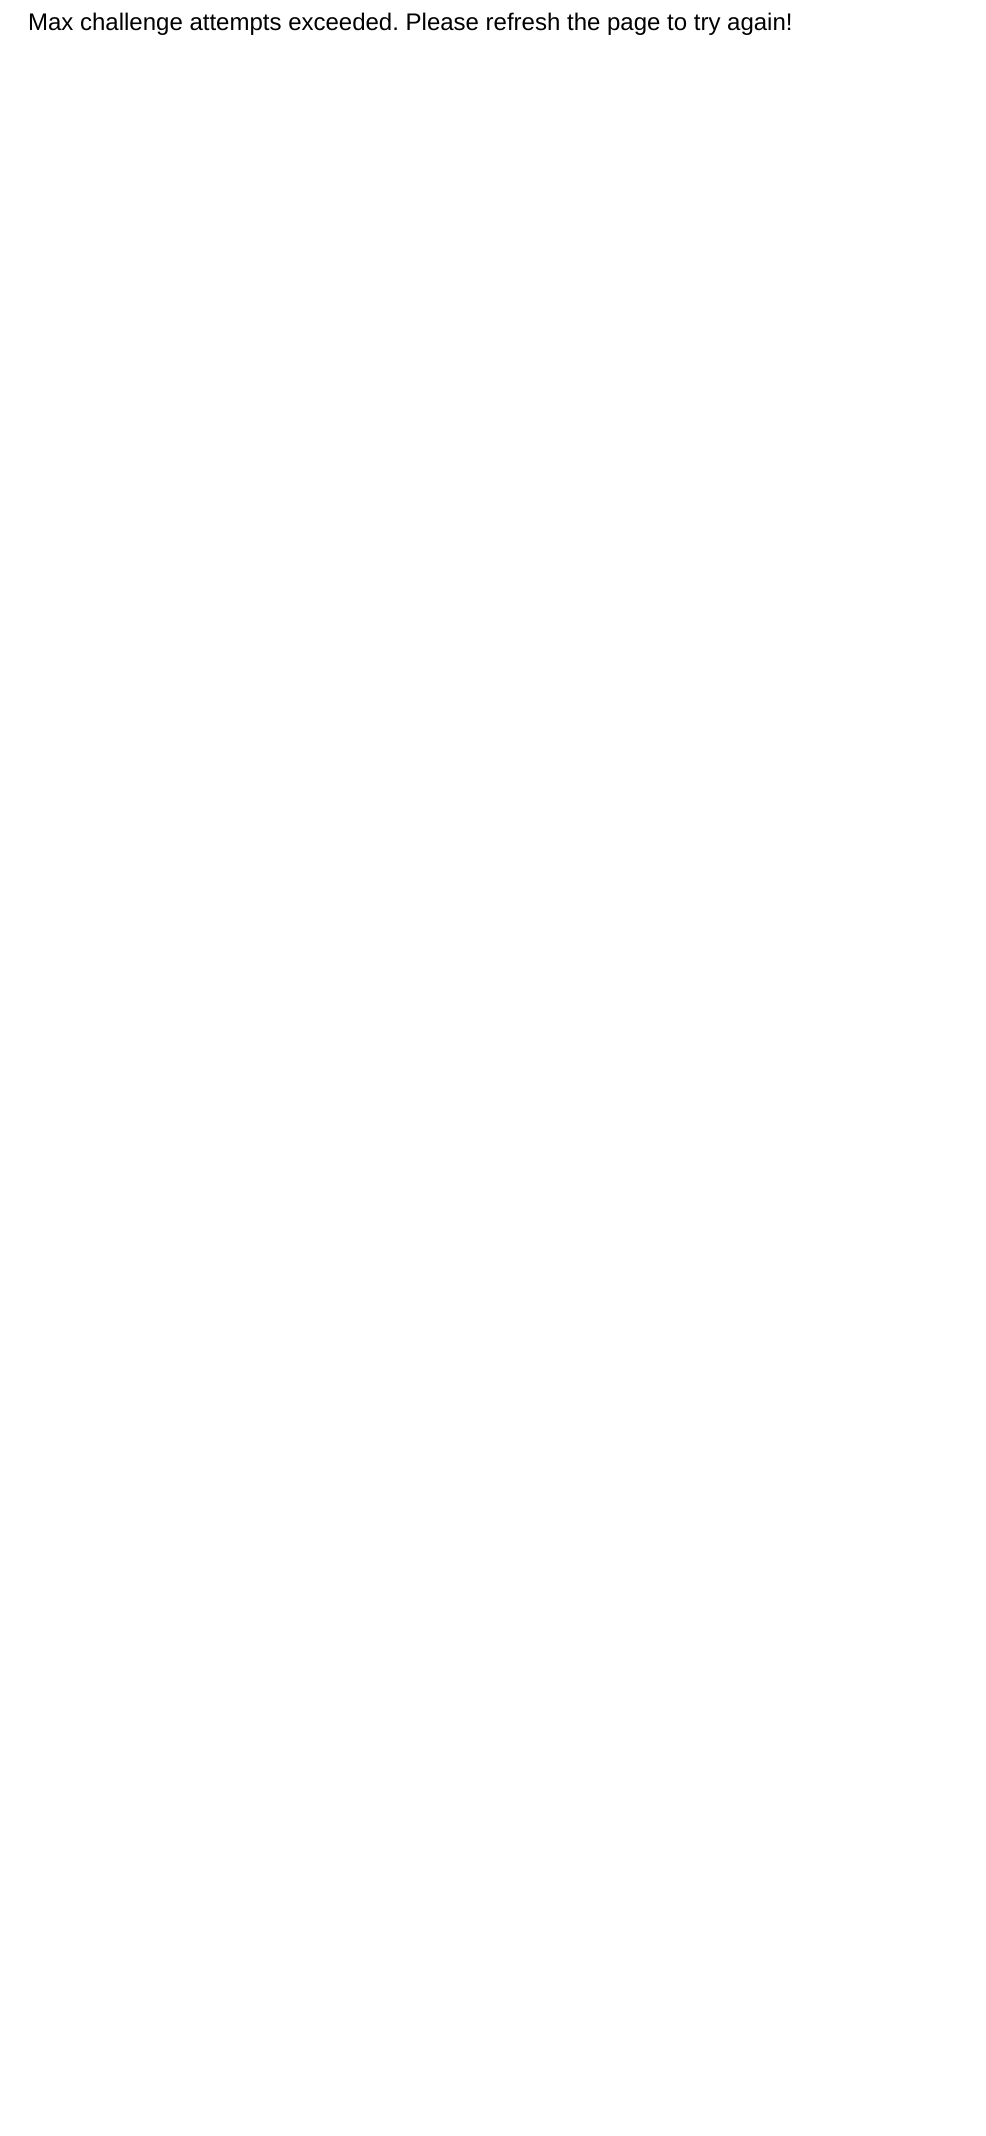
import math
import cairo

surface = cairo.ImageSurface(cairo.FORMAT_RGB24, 986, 2136)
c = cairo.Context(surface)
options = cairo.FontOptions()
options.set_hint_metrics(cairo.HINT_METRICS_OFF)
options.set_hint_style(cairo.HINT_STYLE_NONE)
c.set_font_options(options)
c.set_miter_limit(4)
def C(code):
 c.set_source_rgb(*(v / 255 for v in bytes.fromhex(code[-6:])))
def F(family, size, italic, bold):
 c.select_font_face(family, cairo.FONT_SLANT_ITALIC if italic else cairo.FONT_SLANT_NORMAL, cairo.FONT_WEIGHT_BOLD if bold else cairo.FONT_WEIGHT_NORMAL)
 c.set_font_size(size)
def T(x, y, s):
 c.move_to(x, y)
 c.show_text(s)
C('ffffff')
c.paint()
F('Liberation Sans',24,0,0)
C('000000')
T(28,30,'Max challenge attempts exceeded. Please refresh the page to try again!')
surface.write_to_png('o.png')
